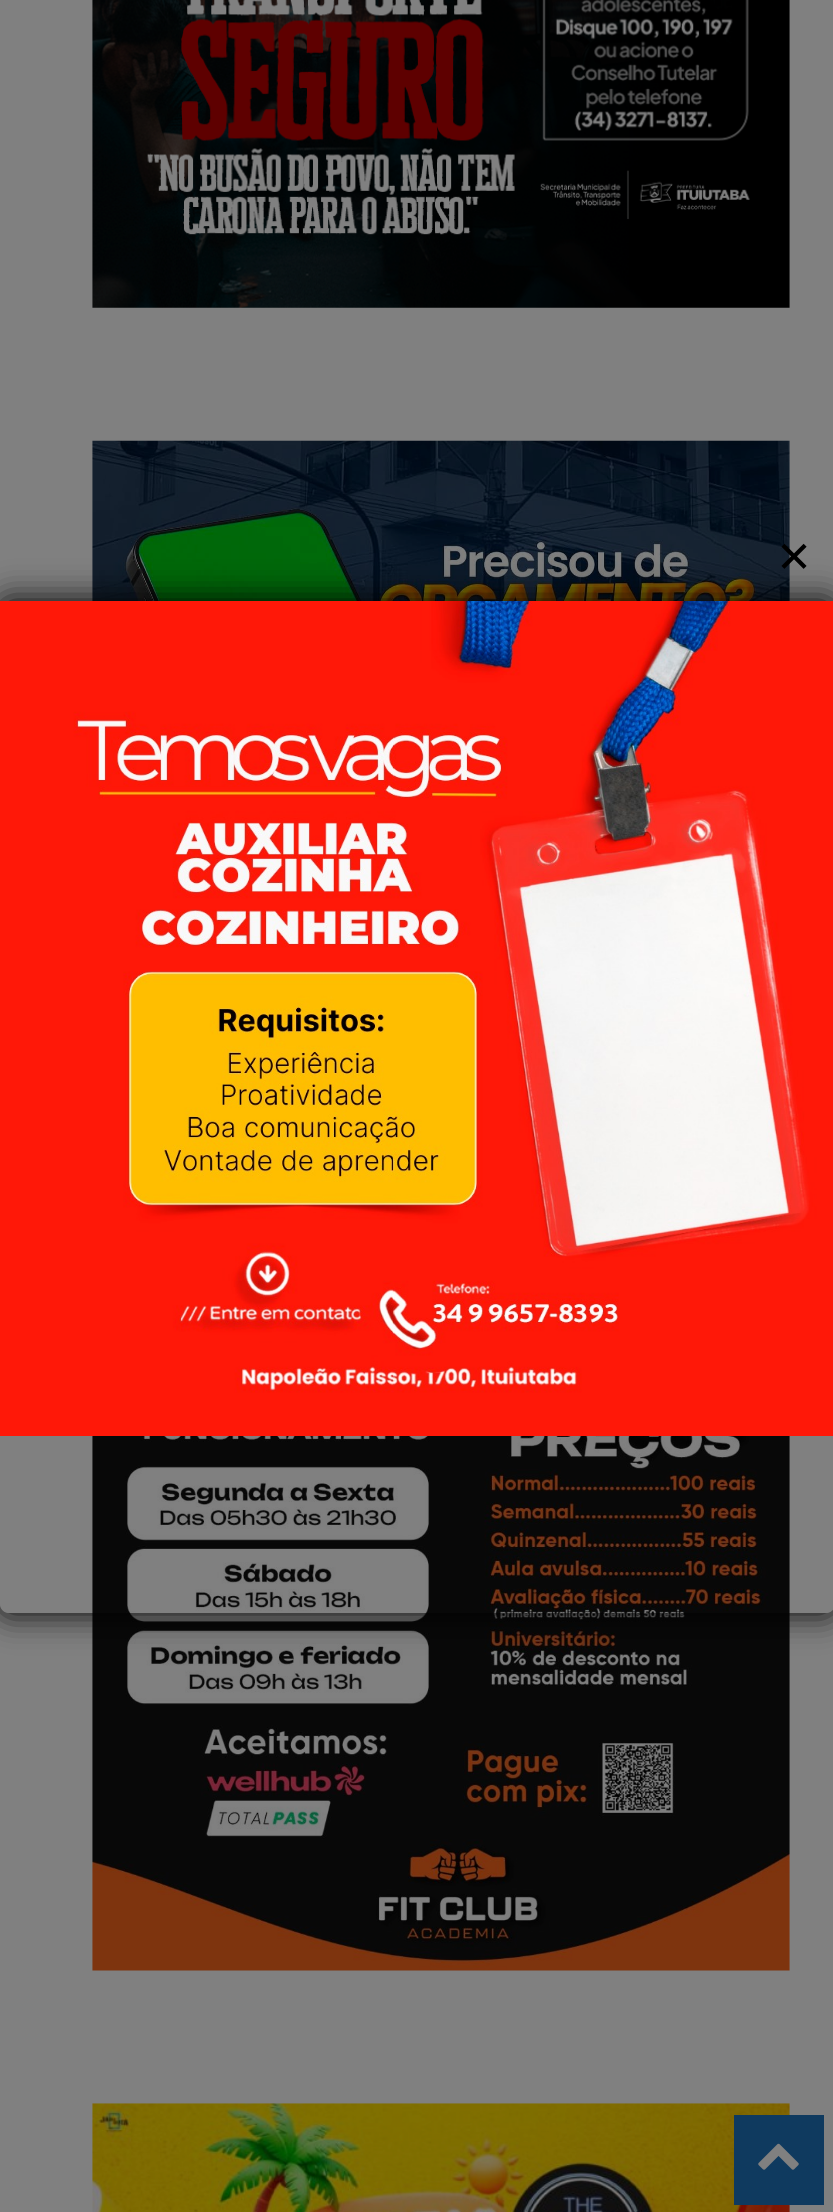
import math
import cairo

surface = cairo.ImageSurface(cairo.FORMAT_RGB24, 833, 2212)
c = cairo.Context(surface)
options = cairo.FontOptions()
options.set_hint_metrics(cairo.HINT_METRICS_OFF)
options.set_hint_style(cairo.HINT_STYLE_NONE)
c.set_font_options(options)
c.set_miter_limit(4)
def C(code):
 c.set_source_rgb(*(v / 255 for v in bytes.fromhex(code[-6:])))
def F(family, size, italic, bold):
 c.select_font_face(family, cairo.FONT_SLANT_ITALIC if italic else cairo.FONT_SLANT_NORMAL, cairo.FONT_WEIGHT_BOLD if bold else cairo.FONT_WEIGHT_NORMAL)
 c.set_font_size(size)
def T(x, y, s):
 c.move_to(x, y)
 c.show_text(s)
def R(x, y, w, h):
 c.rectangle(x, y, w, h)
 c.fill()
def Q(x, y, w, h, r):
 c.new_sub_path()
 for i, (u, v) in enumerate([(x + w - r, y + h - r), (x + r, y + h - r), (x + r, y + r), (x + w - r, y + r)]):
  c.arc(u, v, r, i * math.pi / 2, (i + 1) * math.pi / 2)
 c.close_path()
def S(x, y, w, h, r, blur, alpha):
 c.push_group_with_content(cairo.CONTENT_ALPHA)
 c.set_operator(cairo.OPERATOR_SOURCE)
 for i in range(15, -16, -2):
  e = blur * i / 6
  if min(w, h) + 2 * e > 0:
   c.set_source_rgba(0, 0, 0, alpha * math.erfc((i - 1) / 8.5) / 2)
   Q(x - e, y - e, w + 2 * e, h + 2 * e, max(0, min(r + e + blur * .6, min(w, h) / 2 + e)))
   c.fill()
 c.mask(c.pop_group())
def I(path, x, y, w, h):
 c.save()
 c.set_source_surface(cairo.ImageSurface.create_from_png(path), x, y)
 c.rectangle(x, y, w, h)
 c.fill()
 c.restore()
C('808080')
c.paint()
I('1.png',92,0,698,308)
I('2.png',92,440,698,161)
I('3.png',92,1436,698,535)
I('4.png',92,2103,698,109)
c.save()
c.set_fill_rule(cairo.FILL_RULE_EVEN_ODD)
c.new_path()
c.move_to(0,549)
c.line_to(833,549)
c.line_to(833,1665)
c.line_to(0,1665)
c.close_path()
c.move_to(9,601)
c.line_to(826,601)
c.curve_to(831,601,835,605,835,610)
c.line_to(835,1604)
c.curve_to(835,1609,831,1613,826,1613)
c.line_to(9,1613)
c.curve_to(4,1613,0,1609,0,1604)
c.line_to(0,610)
c.curve_to(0,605,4,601,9,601)
c.close_path()
c.clip()
C('000000')
S(0,601,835,1012,9,17,1)
c.restore()
F('DejaVu Sans',43,0,0)
C('000000')
T(776,572,'✕')
I('5.png',0,601,833,835)
C('0f3a5f')
R(734,2115,90,90)
I('6.png',758,2143,41,27)
surface.write_to_png('o.png')
